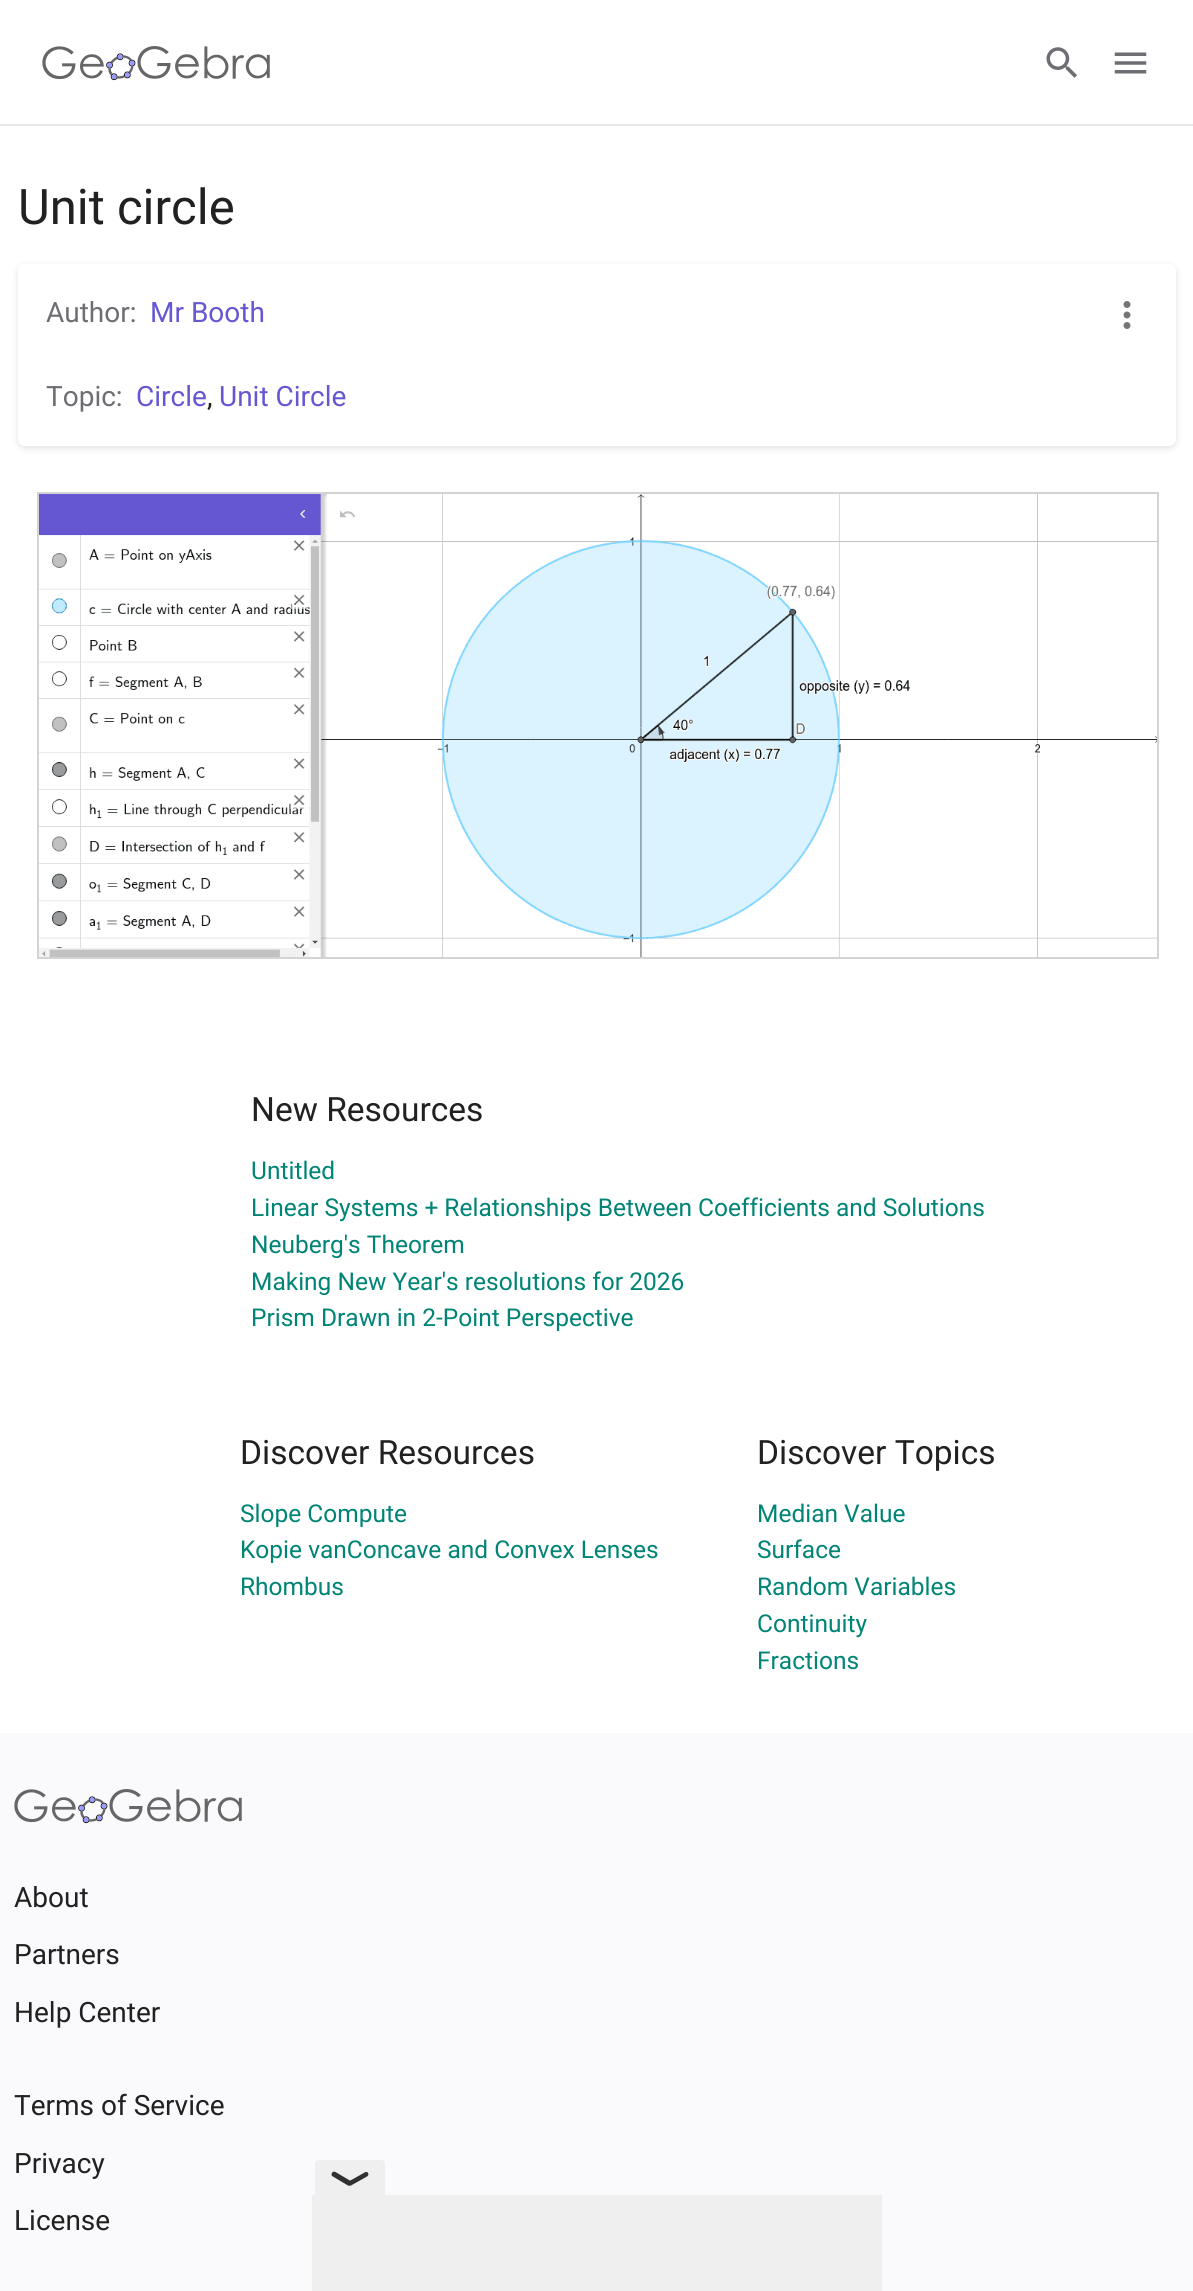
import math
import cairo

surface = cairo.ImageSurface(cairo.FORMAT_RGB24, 1193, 2291)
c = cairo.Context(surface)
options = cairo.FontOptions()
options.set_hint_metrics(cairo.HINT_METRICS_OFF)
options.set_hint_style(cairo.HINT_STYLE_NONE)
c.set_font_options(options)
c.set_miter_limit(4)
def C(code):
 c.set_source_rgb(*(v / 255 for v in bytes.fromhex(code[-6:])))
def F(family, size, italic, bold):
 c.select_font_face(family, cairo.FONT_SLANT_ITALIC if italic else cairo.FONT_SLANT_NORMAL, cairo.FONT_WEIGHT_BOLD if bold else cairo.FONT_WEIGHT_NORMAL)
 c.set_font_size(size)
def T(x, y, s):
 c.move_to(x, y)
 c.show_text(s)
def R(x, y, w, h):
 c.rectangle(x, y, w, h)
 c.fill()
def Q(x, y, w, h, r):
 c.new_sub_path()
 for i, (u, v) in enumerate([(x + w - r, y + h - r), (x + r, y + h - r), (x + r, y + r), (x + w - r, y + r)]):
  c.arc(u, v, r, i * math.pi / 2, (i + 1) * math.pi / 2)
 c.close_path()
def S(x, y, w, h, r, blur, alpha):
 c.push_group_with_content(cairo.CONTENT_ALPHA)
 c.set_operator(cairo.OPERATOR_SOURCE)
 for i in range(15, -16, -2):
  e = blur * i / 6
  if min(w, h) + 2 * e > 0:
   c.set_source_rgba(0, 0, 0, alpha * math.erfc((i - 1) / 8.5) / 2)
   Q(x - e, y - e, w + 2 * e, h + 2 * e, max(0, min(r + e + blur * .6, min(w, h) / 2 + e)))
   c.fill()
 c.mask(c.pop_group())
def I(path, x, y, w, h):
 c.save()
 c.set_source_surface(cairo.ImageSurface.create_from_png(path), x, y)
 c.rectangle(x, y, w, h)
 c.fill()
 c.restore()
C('ffffff')
c.paint()
C('e6e6eb')
R(0,124,1193,2)
I('1.png',42,46,228,35)
I('2.png',1046,47,31,31)
I('3.png',1114,52,33,22)
F('Roboto',49,0,0)
C('212121')
T(18,224,'Unit circle')
C('1c1c1f')
S(18,266,1158,182,7,3.5,.14)
C('ffffff')
Q(18,264,1158,182,7)
c.fill()
F('Roboto',28,0,0)
C('6e6d73')
T(46,322,'Author:')
C('6557d2')
T(150,322,'Mr Booth')
C('6e6d73')
T(46,406,'Topic:')
C('6557d2')
T(136,406,'Circle')
C('212121')
T(207,406,',')
C('6557d2')
T(219,406,'Unit Circle')
I('4.png',1123,301,8,28)
I('5.png',39,494,1118,463)
c.rectangle(38,493,1120,465)
C('d3d3d3')
c.stroke()
F('Roboto',33.5,0,0)
C('212121')
T(251,1121,'New Resources')
F('Roboto',24.5,0,0)
C('008475')
T(251,1179,'Untitled')
T(251,1216,'Linear Systems + Relationships Between Coefficients and Solutions')
T(251,1253,'Neuberg\'s Theorem')
T(251,1290,'Making New Year\'s resolutions for 2026')
T(251,1326,'Prism Drawn in 2-Point Perspective')
F('Roboto',33.5,0,0)
C('212121')
T(240,1464,'Discover Resources')
F('Roboto',24.5,0,0)
C('008475')
T(240,1522,'Slope Compute')
T(240,1558,'Kopie vanConcave and Convex Lenses')
T(240,1595,'Rhombus')
F('Roboto',33.5,0,0)
C('212121')
T(757,1464,'Discover Topics')
F('Roboto',24.5,0,0)
C('008475')
T(757,1522,'Median Value')
T(757,1558,'Surface')
T(757,1595,'Random Variables')
T(757,1632,'Continuity')
T(757,1669,'Fractions')
C('fafafc')
R(0,1733,1193,558)
I('6.png',14,1789,228,35)
F('Roboto',28,0,0)
C('212121')
T(14,1907,'About')
T(14,1964,'Partners')
T(14,2022,'Help Center')
T(14,2115,'Terms of Service')
T(14,2173,'Privacy')
T(14,2230,'License')
C('efefef')
c.new_path()
c.move_to(319,2160)
c.line_to(381,2160)
c.curve_to(383,2160,385,2162,385,2164)
c.line_to(385,2195)
c.line_to(315,2195)
c.line_to(315,2164)
c.curve_to(315,2162,317,2160,319,2160)
c.close_path()
c.fill()
C('313131')
c.new_path()
c.move_to(335.5,2172)
c.line_to(351.5,2181.5)
c.curve_to(353,2184,350.5,2186.5,348,2185.5)
c.line_to(332,2176)
c.curve_to(330.5,2173.5,333,2170.5,335.5,2172)
c.close_path()
c.fill()
c.new_path()
c.move_to(349.5,2181)
c.line_to(365.5,2172)
c.curve_to(368.5,2171.5,369.5,2175,367,2176.5)
c.line_to(351,2185.5)
c.curve_to(348.5,2186,347,2182,349.5,2181)
c.close_path()
c.fill()
C('efefef')
R(312,2195,570,96)
surface.write_to_png('o.png')
